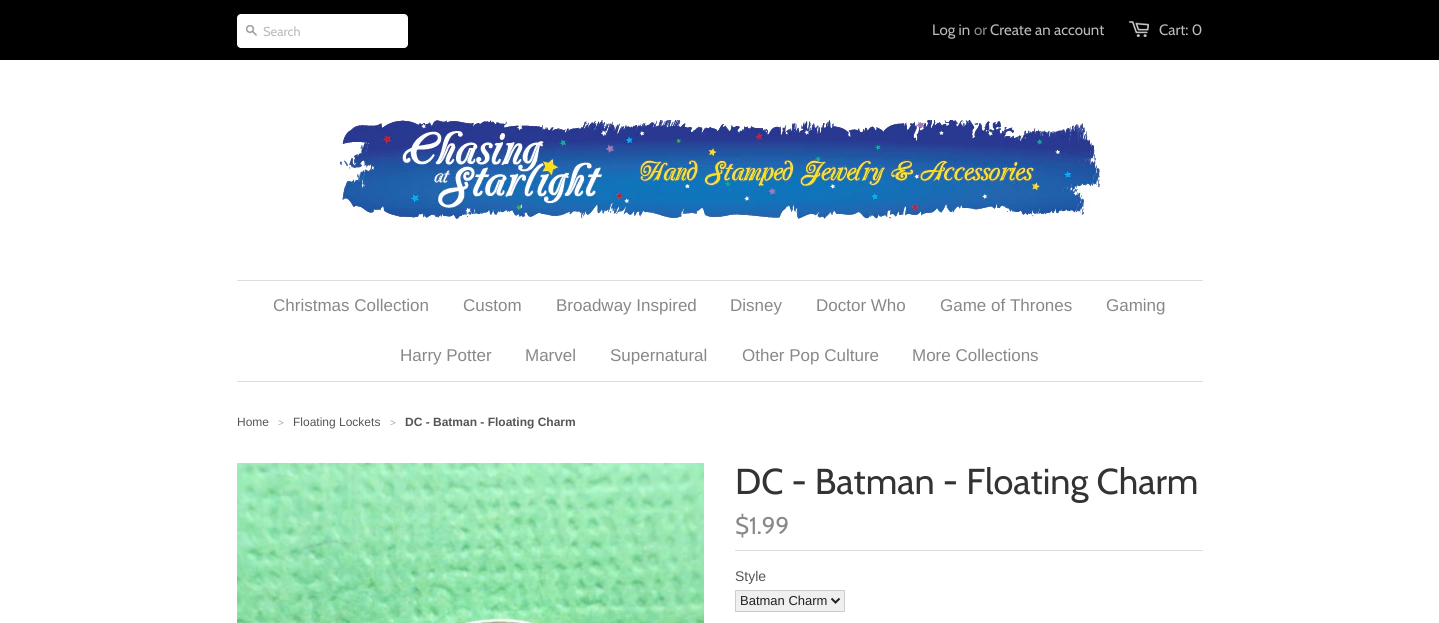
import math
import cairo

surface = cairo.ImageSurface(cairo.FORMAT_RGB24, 1439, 623)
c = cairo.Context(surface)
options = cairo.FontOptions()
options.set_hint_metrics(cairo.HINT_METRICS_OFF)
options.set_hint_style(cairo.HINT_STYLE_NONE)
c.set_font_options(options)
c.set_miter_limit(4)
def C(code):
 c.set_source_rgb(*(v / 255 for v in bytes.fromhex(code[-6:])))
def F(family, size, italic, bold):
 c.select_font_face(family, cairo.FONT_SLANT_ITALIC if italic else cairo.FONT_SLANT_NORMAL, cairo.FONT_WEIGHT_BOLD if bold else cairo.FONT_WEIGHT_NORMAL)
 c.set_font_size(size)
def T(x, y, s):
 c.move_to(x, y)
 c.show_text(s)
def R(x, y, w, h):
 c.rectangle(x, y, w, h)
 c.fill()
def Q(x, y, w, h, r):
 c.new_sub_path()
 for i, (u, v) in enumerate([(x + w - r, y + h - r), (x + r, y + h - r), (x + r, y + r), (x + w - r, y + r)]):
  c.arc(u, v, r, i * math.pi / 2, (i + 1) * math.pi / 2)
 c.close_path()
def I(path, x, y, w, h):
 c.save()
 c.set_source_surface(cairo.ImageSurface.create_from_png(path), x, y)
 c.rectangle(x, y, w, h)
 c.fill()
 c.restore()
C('ffffff')
c.paint()
C('000000')
R(0,0,1439,60)
C('ffffff')
Q(237,14,171,34,4)
c.fill()
I('1.png',246,25,11,11)
F('Cabin',13,0,0)
C('bbbbbb')
T(263,36,'Search')
F('Cabin',15,0,0)
T(932,35,'Log in')
C('888888')
T(974,35,'or')
C('bbbbbb')
T(990,35,'Create an account')
I('2.png',1129,21,20,16)
T(1159,35,'Cart: 0')
I('3.png',340,120,760,100)
C('dddddd')
R(237,280,966,1)
R(237,381,966,1)
F('Liberation Sans',17,0,0)
C('888888')
T(273,311,'Christmas Collection')
T(463,311,'Custom')
T(556,311,'Broadway Inspired')
T(730,311,'Disney')
T(816,311,'Doctor Who')
T(940,311,'Game of Thrones')
T(1106,311,'Gaming')
T(400,361,'Harry Potter')
T(525,361,'Marvel')
T(610,361,'Supernatural')
T(742,361,'Other Pop Culture')
T(912,361,'More Collections')
F('Liberation Sans',12,0,0)
C('555555')
T(237,426,'Home')
F('Liberation Sans',10,0,0)
C('aaaaaa')
T(278,426,'>')
F('Liberation Sans',12,0,0)
C('555555')
T(293,426,'Floating Lockets')
F('Liberation Sans',10,0,0)
C('aaaaaa')
T(390,426,'>')
F('Liberation Sans',12,0,1)
C('555555')
T(405,426,'DC - Batman - Floating Charm')
I('4.png',237,463,467,160)
F('Cabin',36,0,0)
C('333333')
T(735,494,'DC - Batman - Floating Charm')
F('Cabin',24,0,0)
C('888888')
T(735,534,'$1.99')
C('dddddd')
R(735,550,468,1)
F('Liberation Sans',14,0,0)
C('555555')
T(735,581,'Style')
C('efefef')
Q(735.5,590.5,109,21,.5)
c.fill_preserve()
C('cccccc')
c.set_line_width(1)
c.stroke()
c.new_path()
c.move_to(831.5,598.5)
c.line_to(835.5,602.5)
c.line_to(839.5,598.5)
C('222222')
c.set_line_width(2)
c.stroke()
F('Liberation Sans',13,0,0)
T(740,605,'Batman Charm')
surface.write_to_png('o.png')
